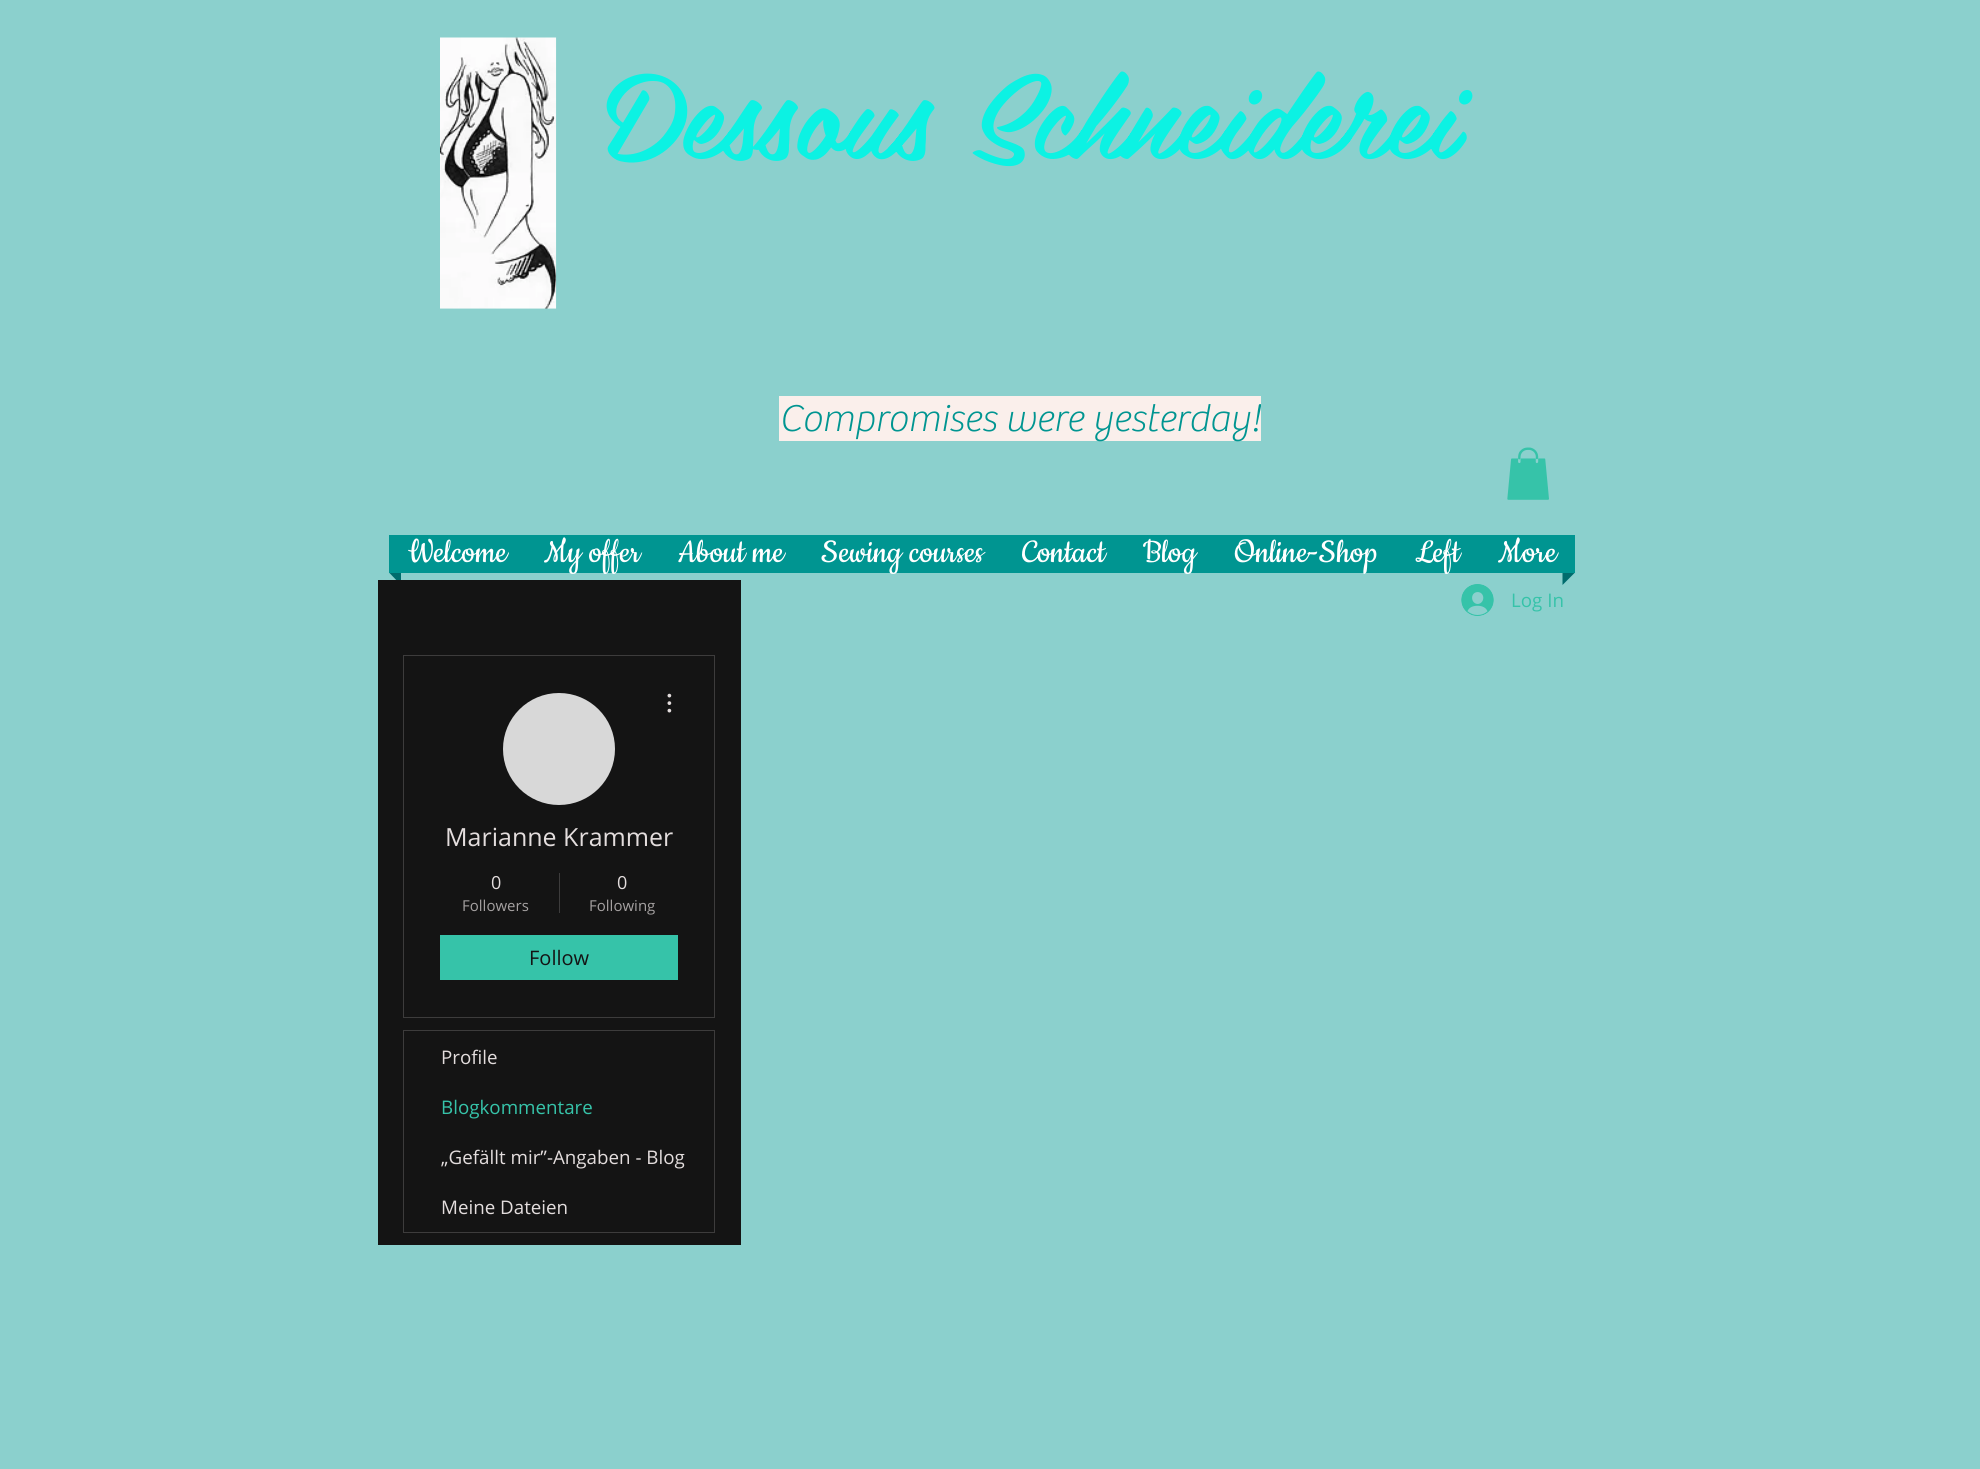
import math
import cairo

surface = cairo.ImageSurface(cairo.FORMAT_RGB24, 1980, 1469)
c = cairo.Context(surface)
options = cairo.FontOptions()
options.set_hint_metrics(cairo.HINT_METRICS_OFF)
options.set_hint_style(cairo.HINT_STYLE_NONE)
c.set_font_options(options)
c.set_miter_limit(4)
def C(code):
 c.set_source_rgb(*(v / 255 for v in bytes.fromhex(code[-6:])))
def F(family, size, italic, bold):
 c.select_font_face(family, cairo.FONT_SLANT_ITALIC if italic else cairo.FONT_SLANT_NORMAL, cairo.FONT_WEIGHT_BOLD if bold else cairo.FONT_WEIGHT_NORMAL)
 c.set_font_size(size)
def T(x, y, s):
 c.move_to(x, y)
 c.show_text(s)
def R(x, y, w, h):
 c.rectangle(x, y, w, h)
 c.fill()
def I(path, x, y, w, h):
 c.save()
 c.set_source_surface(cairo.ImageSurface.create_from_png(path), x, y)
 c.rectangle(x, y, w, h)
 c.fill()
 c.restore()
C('8bd0cd')
c.paint()
I('1.png',440,37,117,272)
F('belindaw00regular',117.5,0,0)
C('0cf2e3')
T(605,159,'Dessous Schneiderei')
C('faefeb')
R(779,396,482,45)
F('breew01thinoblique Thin',38.75,0,0)
C('009591')
T(779,431,'Compromises were yesterday!')
I('2.png',1507,447,42,53)
C('006c6d')
c.new_path()
c.move_to(389,572.5)
c.line_to(401,572.5)
c.line_to(401,585)
c.close_path()
c.fill()
c.new_path()
c.move_to(1562.5,572.5)
c.line_to(1575,572.5)
c.line_to(1562.5,585)
c.close_path()
c.fill()
C('009591')
R(389,535,1186,38)
F('Cookie',37.5,0,0)
C('ffffff')
T(408,562,'Welcome')
T(544,562,'My offer')
T(678,562,'About me')
T(821,562,'Sewing courses')
T(1022,562,'Contact')
T(1143,562,'Blog')
T(1234,562,'Online-Shop')
T(1415,562,'Left')
T(1498,562,'More')
I('3.png',1461,584,33,32)
F('Open Sans',18.75,0,0)
C('36c3a9')
T(1511,607,'Log In')
C('141414')
R(378,580,363,665)
c.rectangle(403.5,655.5,311,362)
C('3d3c3c')
c.set_line_width(1)
c.stroke()
C('d8d8d8')
c.arc(559,749,56,0,2 * math.pi)
c.fill()
I('4.png',667,693,5,20)
F('Open Sans',25,0,0)
C('e3dddd')
T(445,846,'Marianne Krammer')
F('Open Sans',18,0,0)
T(491,889,'0')
F('Open Sans',15,0,0)
C('a5a1a1')
T(462,911,'Followers')
C('3d3c3c')
R(559,873,1,40)
F('Open Sans',18,0,0)
C('e3dddd')
T(617,889,'0')
F('Open Sans',15,0,0)
C('a5a1a1')
T(589,911,'Following')
C('36c3a9')
R(440,935,238,45)
F('Open Sans',20,0,0)
C('141414')
T(529,965,'Follow')
c.rectangle(403.5,1030.5,311,202)
C('3d3c3c')
c.stroke()
F('Open Sans',18.75,0,0)
C('e3dddd')
T(441,1064,'Profile')
C('36c3a9')
T(441,1114,'Blogkommentare')
C('e3dddd')
T(441,1164,'„Gefällt mir”-Angaben - Blog')
T(441,1214,'Meine Dateien')
surface.write_to_png('o.png')
